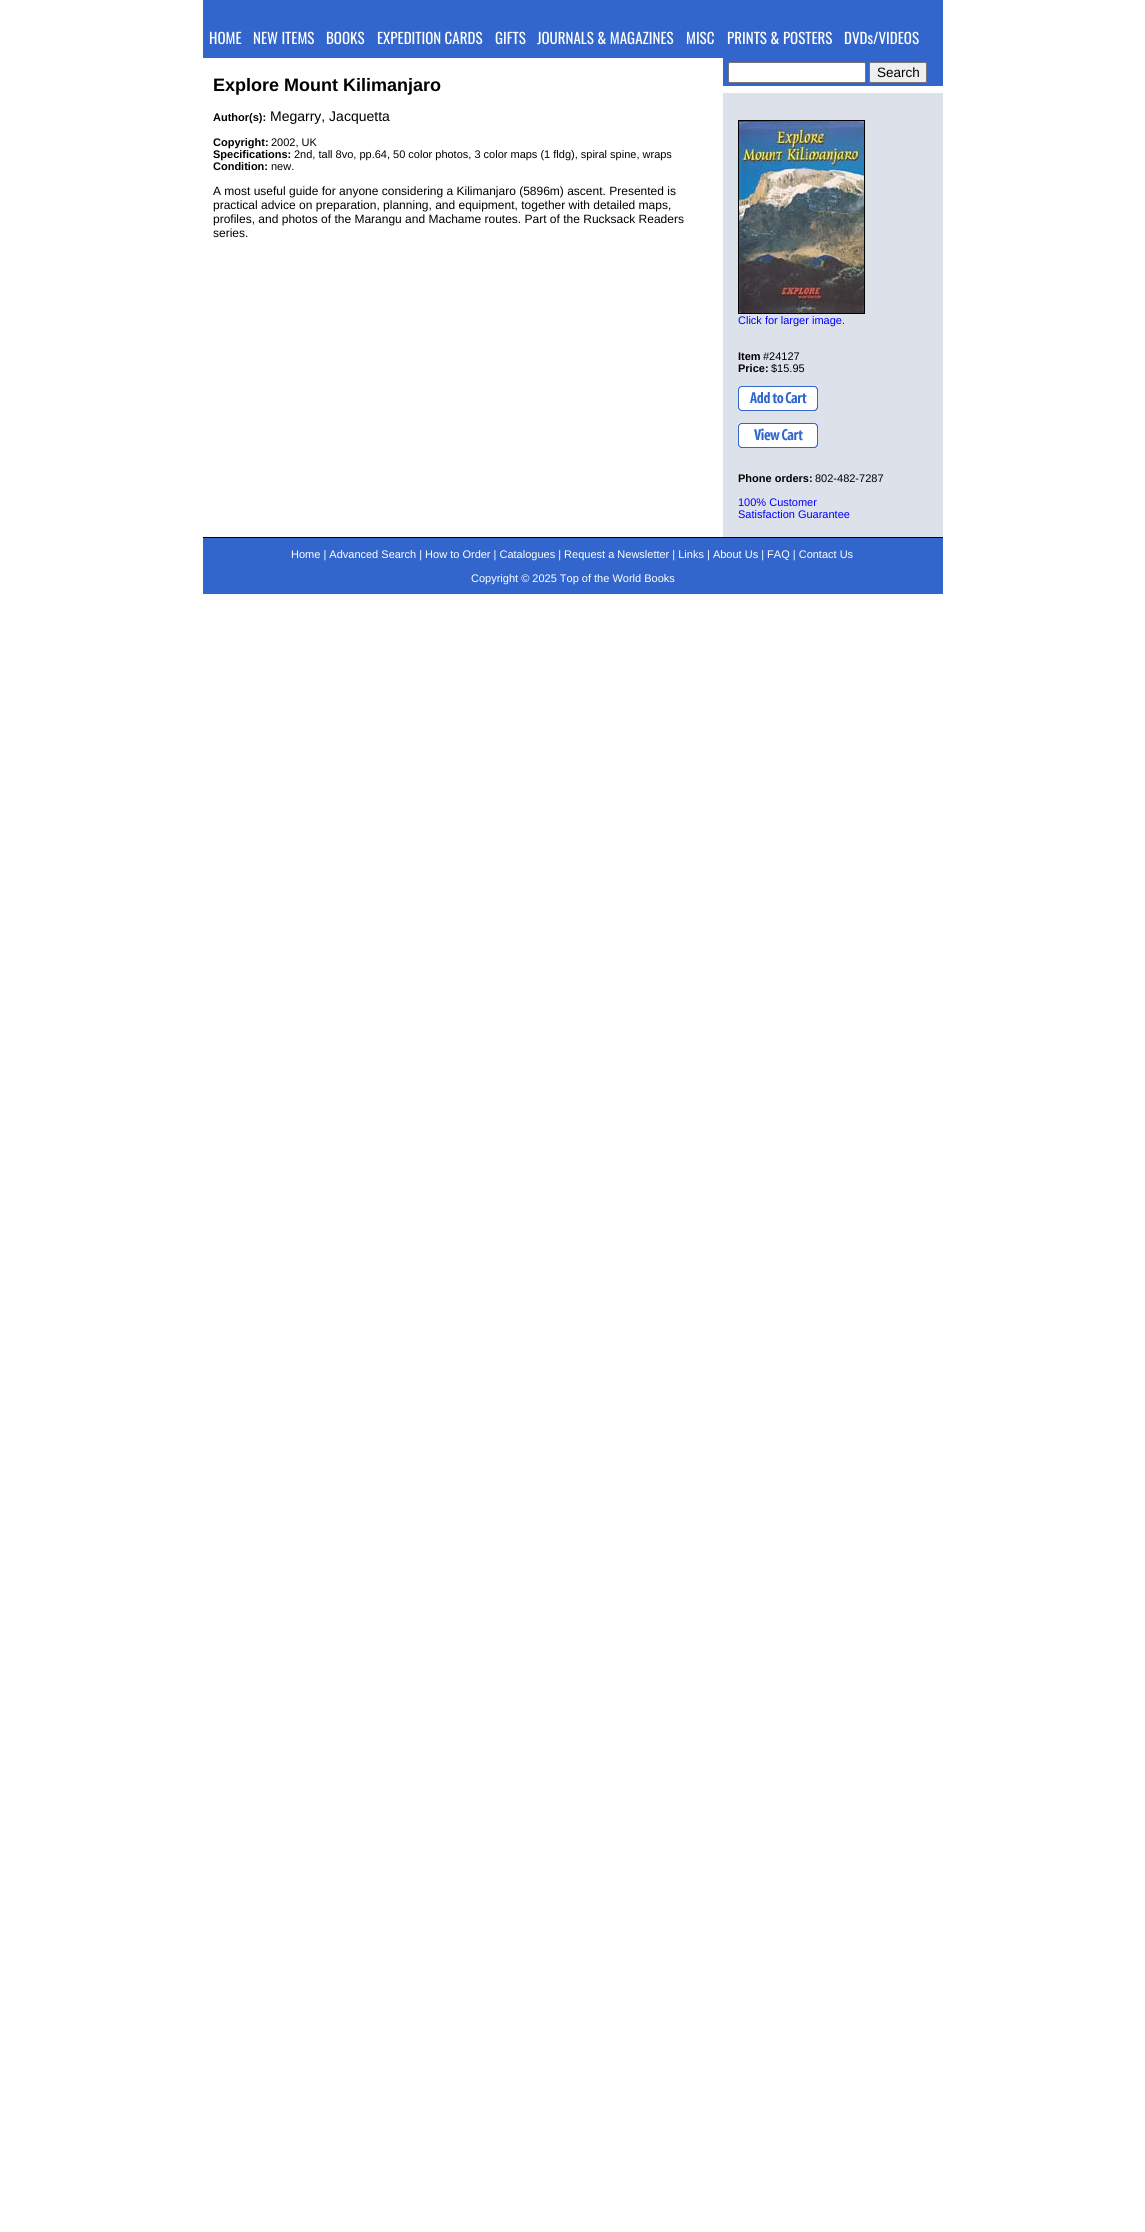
import math
import cairo

surface = cairo.ImageSurface(cairo.FORMAT_RGB24, 1145, 2232)
c = cairo.Context(surface)
options = cairo.FontOptions()
options.set_hint_metrics(cairo.HINT_METRICS_OFF)
options.set_hint_style(cairo.HINT_STYLE_NONE)
c.set_font_options(options)
c.set_miter_limit(4)
def C(code):
 c.set_source_rgb(*(v / 255 for v in bytes.fromhex(code[-6:])))
def F(family, size, italic, bold):
 c.select_font_face(family, cairo.FONT_SLANT_ITALIC if italic else cairo.FONT_SLANT_NORMAL, cairo.FONT_WEIGHT_BOLD if bold else cairo.FONT_WEIGHT_NORMAL)
 c.set_font_size(size)
def T(x, y, s):
 c.move_to(x, y)
 c.show_text(s)
def R(x, y, w, h):
 c.rectangle(x, y, w, h)
 c.fill()
def Q(x, y, w, h, r):
 c.new_sub_path()
 for i, (u, v) in enumerate([(x + w - r, y + h - r), (x + r, y + h - r), (x + r, y + r), (x + w - r, y + r)]):
  c.arc(u, v, r, i * math.pi / 2, (i + 1) * math.pi / 2)
 c.close_path()
def I(path, x, y, w, h):
 c.save()
 c.set_source_surface(cairo.ImageSurface.create_from_png(path), x, y)
 c.rectangle(x, y, w, h)
 c.fill()
 c.restore()
C('ffffff')
c.paint()
C('3366cc')
R(203,0,740,58)
F('Oswald',15,0,0)
C('ffffff')
T(209,44,'HOME')
T(253,44,'NEW ITEMS')
T(326,44,'BOOKS')
T(377,44,'EXPEDITION CARDS')
T(495,44,'GIFTS')
T(537,44,'JOURNALS & MAGAZINES')
T(686,44,'MISC')
T(727,44,'PRINTS & POSTERS')
T(844,44,'DVDs/VIDEOS')
C('3366cc')
R(723,58,220,28)
C('ffffff')
Q(728.5,62.5,137,20,1.5)
c.fill_preserve()
C('767676')
c.set_line_width(1)
c.stroke()
C('efefef')
Q(869.5,62.5,57,20,1.5)
c.fill_preserve()
C('767676')
c.stroke()
F('Liberation Sans',13.5,0,0)
C('000000')
T(877,77,'Search')
F('Liberation Sans',18,0,1)
T(213,91,'Explore Mount Kilimanjaro')
F('Liberation Sans',11,0,1)
T(213,121,'Author(s):')
F('Liberation Sans',14,0,0)
T(270,121,'Megarry, Jacquetta')
F('Liberation Sans',11,0,1)
T(213,146,'Copyright:')
F('Liberation Sans',11,0,0)
T(271,146,'2002, UK')
F('Liberation Sans',11,0,1)
T(213,158,'Specifications:')
F('Liberation Sans',11,0,0)
T(294,158,'2nd, tall 8vo, pp.64, 50 color photos, 3 color maps (1 fldg), spiral spine, wraps')
F('Liberation Sans',11,0,1)
T(213,170,'Condition:')
F('Liberation Sans',11,0,0)
T(271,170,'new.')
F('Liberation Sans',12,0,0)
T(213,195,'A most useful guide for anyone considering a Kilimanjaro (5896m) ascent. Presented is')
T(213,209,'practical advice on preparation, planning, and equipment, together with detailed maps,')
T(213,223,'profiles, and photos of the Marangu and Machame routes. Part of the Rucksack Readers')
T(213,237,'series.')
C('dde1ea')
R(723,93,220,444)
c.rectangle(738.5,120.5,126,193)
C('000000')
c.stroke()
I('1.png',739,121,125,192)
F('Liberation Sans',11,0,0)
C('0000ff')
T(738,324,'Click for larger image.')
F('Liberation Sans',11,0,1)
C('000000')
T(738,360,'Item')
F('Liberation Sans',11,0,0)
T(763,360,'#24127')
F('Liberation Sans',11,0,1)
T(738,372,'Price:')
F('Liberation Sans',11,0,0)
T(771,372,'$15.95')
I('2.png',738,386,80,25)
I('3.png',738,423,80,25)
F('Liberation Sans',11,0,1)
T(738,482,'Phone orders:')
F('Liberation Sans',11,0,0)
T(815,482,'802-482-7287')
C('0000ff')
T(738,506,'100% Customer')
T(738,518,'Satisfaction Guarantee')
C('3366cc')
R(203,538,740,56)
C('000000')
R(203,537,740,1)
C('ffffff')
T(291,558,'Home | Advanced Search | How to Order | Catalogues | Request a Newsletter | Links | About Us | FAQ | Contact Us')
T(471,582,'Copyright © 2025 Top of the World Books')
surface.write_to_png('o.png')
